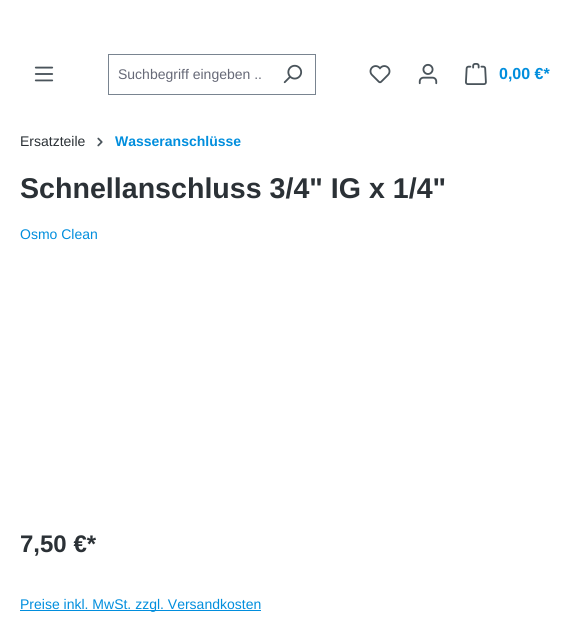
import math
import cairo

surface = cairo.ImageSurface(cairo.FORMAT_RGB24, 583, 618)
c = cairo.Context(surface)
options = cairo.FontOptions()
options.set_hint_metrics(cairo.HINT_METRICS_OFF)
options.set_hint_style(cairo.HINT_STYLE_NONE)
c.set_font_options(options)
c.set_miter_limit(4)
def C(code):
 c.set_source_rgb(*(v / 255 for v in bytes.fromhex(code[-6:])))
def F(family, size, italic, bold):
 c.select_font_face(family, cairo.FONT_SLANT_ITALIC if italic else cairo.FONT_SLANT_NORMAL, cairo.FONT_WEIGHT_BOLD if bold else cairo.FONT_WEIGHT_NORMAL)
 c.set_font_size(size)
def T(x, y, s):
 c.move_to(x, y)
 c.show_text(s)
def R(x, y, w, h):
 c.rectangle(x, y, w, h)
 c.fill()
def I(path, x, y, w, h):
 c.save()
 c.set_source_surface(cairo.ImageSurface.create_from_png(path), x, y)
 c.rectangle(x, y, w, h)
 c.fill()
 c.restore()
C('ffffff')
c.paint()
I('1.png',34,66,20,16)
C('798490')
R(108,54,208,1)
R(108,94,162,1)
R(108,54,1,41)
F('Liberation Sans',14,0,0)
C('666977')
T(118,79,'Suchbegriff eingeben ..')
C('798490')
R(315,54,1,41)
R(269,94,47,1)
I('2.png',283,64,20,20)
I('3.png',369,65,22,19)
I('4.png',418,63,20,22)
I('5.png',465,63,22,22)
F('Liberation Sans',16,0,1)
C('018edd')
T(499,79,'0,00 €*')
F('Liberation Sans',14,0,0)
C('2b3136')
T(20,146,'Ersatzteile')
I('6.png',97,137,6,10)
F('Liberation Sans',14,0,1)
C('018edd')
T(115,146,'Wasseranschlüsse')
F('Liberation Sans',28.6,0,1)
C('2b3136')
T(20,198,'Schnellanschluss 3/4" IG x 1/4"')
F('Liberation Sans',14,0,0)
C('018edd')
T(20,239,'Osmo Clean')
F('Liberation Sans',24,0,1)
C('2b3136')
T(20,552,'7,50 €*')
C('018edd')
R(20,610,241,1)
F('Liberation Sans',14,0,0)
T(20,609,'Preise inkl. MwSt. zzgl. Versandkosten')
surface.write_to_png('o.png')
